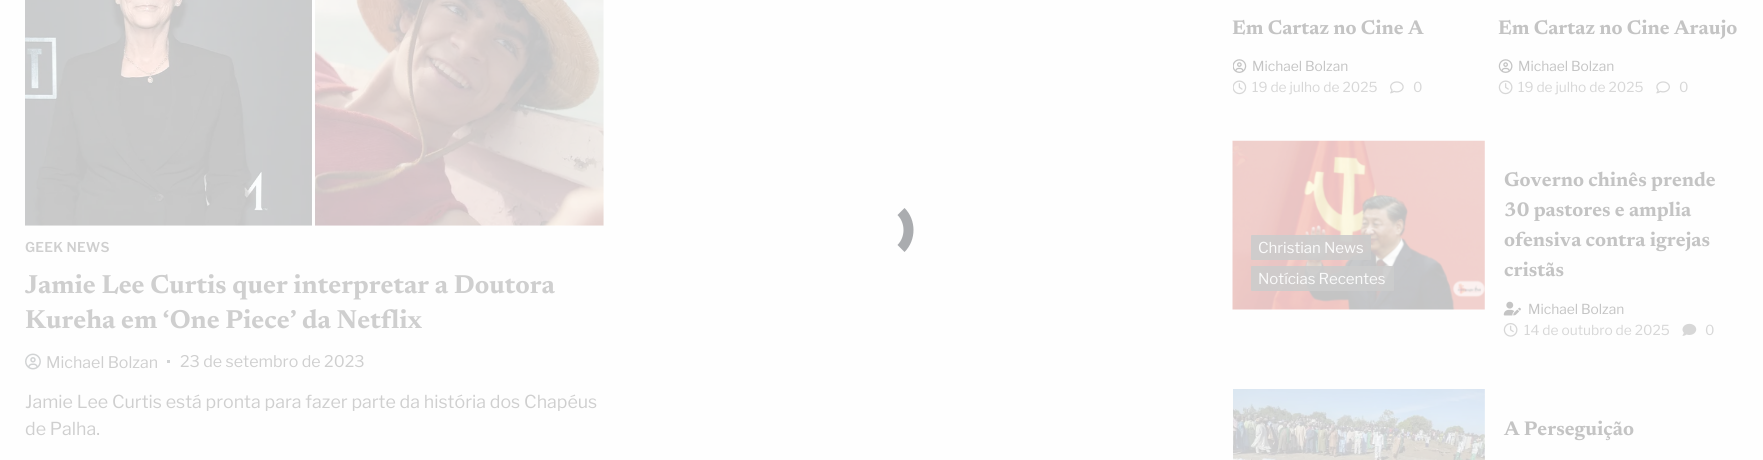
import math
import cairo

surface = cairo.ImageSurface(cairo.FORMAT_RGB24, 1763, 460)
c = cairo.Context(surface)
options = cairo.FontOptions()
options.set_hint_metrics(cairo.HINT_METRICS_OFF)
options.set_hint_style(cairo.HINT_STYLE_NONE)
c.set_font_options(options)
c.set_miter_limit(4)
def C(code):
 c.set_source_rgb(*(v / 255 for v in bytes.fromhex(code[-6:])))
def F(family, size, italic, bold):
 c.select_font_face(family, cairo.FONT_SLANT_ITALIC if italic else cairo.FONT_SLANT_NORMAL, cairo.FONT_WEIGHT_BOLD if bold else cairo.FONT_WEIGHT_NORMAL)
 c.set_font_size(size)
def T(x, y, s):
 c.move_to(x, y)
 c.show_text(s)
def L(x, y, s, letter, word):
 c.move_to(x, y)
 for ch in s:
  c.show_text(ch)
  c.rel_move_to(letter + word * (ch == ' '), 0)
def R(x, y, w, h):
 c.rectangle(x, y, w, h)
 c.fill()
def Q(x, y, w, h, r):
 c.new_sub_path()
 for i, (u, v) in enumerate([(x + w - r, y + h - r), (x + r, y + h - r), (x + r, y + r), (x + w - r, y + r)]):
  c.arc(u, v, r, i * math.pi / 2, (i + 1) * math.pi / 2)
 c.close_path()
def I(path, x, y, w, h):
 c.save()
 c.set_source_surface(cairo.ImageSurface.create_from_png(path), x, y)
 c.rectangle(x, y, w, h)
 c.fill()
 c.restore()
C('fefefe')
c.paint()
I('1.png',25,0,579,226)
F('Libre Franklin SemiBold',13.5,0,0)
C('cfcfcf')
L(25,252,'GEEK NEWS',.25,0)
F('Newsreader',26.3,0,1)
T(25,293,'Jamie Lee Curtis quer interpretar a Doutora')
T(25,328,'Kureha em ‘One Piece’ da Netflix')
I('2.png',25,353,16,17)
F('Libre Franklin Thin',16,0,0)
T(46,368,'Michael Bolzan')
C('d1d3d4')
R(167,360,3,3)
C('cfcfcf')
T(180,367,'23 de setembro de 2023')
F('Libre Franklin Thin',17.8,0,0)
T(25,408,'Jamie Lee Curtis está pronta para fazer parte da história dos Chapéus')
T(25,435,'de Palha.')
F('Newsreader',20,0,1)
C('c4c4c4')
T(1232,34,'Em Cartaz no Cine A')
I('3.png',1233,59,14,14)
F('Libre Franklin Thin',13.75,0,0)
T(1252,71,'Michael Bolzan')
I('4.png',1233,80,14,15)
C('d7d7d7')
T(1252,92,'19 de julho de 2025')
I('5.png',1390,81,14,13)
T(1413,92,'0')
F('Newsreader',20,0,1)
C('c4c4c4')
T(1498,34,'Em Cartaz no Cine Araujo')
I('6.png',1498,59,15,14)
F('Libre Franklin Thin',13.75,0,0)
T(1518,71,'Michael Bolzan')
I('7.png',1498,80,15,15)
C('d7d7d7')
T(1518,92,'19 de julho de 2025')
I('8.png',1656,81,14,13)
T(1679,92,'0')
I('9.png',1232,140,253,170)
c.set_source_rgba(0.8,0.8,0.8,0.9)
Q(1251,235,120,25,1)
c.fill()
F('Libre Franklin Thin',15,0,0)
C('fafafa')
T(1258,253,'Christian News')
c.set_source_rgba(0.8,0.8,0.8,0.9)
Q(1251,266,143,25,1)
c.fill()
C('fafafa')
T(1258,284,'Notícias Recentes')
F('Newsreader',20,0,1)
C('c4c4c4')
T(1504,186,'Governo chinês prende')
T(1504,216,'30 pastores e amplia')
T(1504,246,'ofensiva contra igrejas')
T(1504,276,'cristãs')
I('10.png',1503,301,18,15)
F('Libre Franklin Thin',13.75,0,0)
T(1528,314,'Michael Bolzan')
I('11.png',1503,323,15,14)
C('d7d7d7')
T(1524,335,'14 de outubro de 2025')
I('12.png',1682,323,15,13)
T(1705,335,'0')
I('13.png',1233,389,252,71)
F('Newsreader',20,0,1)
C('c4c4c4')
T(1504,435,'A Perseguição')
c.new_path()
c.move_to(901,211.5)
c.curve_to(911,221.5,911,238.5,901,248.5)
c.move_to(901,211.5)
c.curve_to(911,221.5,911,238.5,901,248.5)
c.move_to(901,211.5)
c.curve_to(911,221.5,911,238.5,901,248.5)
C('aaacaf')
c.set_line_width(10)
c.stroke()
surface.write_to_png('o.png')
